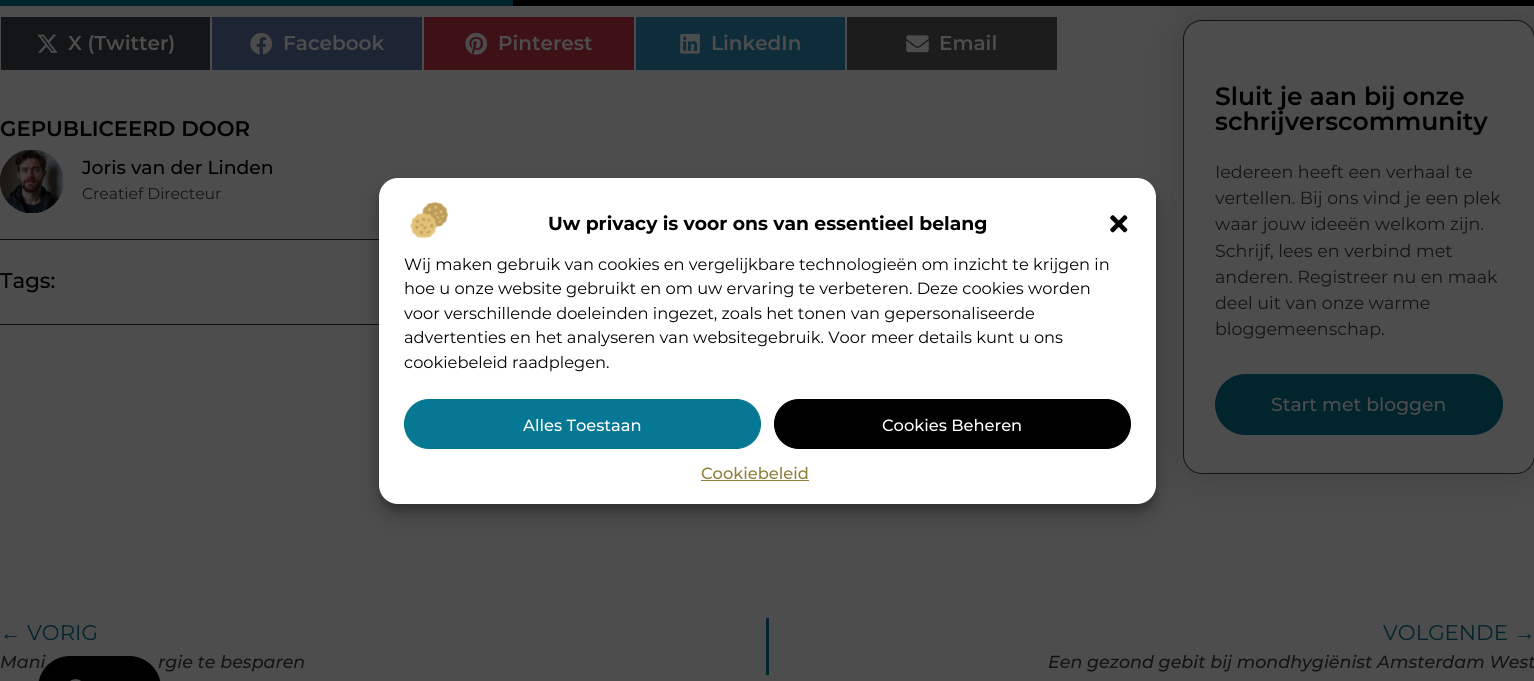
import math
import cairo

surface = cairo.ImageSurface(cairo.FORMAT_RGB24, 1534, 681)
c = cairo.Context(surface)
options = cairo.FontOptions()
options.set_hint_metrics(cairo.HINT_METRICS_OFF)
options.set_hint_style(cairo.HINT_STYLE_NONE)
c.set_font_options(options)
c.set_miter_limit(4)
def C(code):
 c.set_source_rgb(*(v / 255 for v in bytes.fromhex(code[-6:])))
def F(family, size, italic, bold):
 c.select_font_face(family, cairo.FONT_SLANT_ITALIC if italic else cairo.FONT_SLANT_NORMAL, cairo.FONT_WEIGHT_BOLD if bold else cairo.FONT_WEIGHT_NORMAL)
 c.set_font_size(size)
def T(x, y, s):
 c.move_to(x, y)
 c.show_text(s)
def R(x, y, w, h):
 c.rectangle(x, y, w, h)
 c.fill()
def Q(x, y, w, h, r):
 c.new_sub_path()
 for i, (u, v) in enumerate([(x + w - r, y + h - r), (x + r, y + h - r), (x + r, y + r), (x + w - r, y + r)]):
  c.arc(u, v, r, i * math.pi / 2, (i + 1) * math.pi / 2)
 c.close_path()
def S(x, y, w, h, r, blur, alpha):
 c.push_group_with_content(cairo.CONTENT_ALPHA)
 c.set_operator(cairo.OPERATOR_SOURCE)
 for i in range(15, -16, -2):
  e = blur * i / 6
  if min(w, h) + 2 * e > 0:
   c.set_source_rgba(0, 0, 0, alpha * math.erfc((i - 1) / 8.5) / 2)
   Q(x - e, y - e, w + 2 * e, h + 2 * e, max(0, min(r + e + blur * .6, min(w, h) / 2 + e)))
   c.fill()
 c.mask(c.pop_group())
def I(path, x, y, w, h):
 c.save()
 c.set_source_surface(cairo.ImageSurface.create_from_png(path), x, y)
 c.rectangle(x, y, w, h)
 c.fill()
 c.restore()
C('4d4d4d')
c.paint()
C('000000')
R(513,0,1021,6)
C('02242c')
R(0,0,513,6)
F('Montserrat Medium',17.5,1,0)
C('141414')
T(0,668,'Mani')
T(158,668,'rgie te besparen')
C('000000')
Q(38,656,123,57,32)
c.fill()
I('1.png',70,679,11,2)
C('141516')
R(1,17,209,53)
I('2.png',37,34,21,19)
F('Montserrat SemiBold',20,0,0)
C('4d4d4d')
T(68,50,'X (Twitter)')
C('1d2534')
R(212,17,210,53)
I('3.png',250,33,23,22)
C('4d4d4d')
T(283,50,'Facebook')
C('3d1116')
R(424,17,210,53)
I('4.png',465,33,23,22)
C('4d4d4d')
T(498,50,'Pinterest')
C('0f2c3b')
R(636,17,209,53)
I('5.png',680,33,20,21)
C('4d4d4d')
T(711,50,'LinkedIn')
C('1c1c1c')
R(847,17,210,53)
I('6.png',906,35,23,18)
C('4d4d4d')
T(939,50,'Email')
F('Montserrat SemiBold',21.25,0,0)
C('000000')
T(0,136,'GEPUBLICEERD DOOR')
I('7.png',0,150,64,63)
F('Montserrat Medium',18.75,0,0)
T(82,174,'Joris van der Linden')
F('Montserrat',15.6,0,0)
C('141414')
T(82,199,'Creatief Directeur')
C('0f0f0f')
R(0,239,379,1)
R(0,324,379,1)
F('Montserrat Medium',21.25,0,0)
C('000000')
T(0,288,'Tags:')
C('000000')
S(1183,20,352,454,19,25,.16)
C('4d4d4d')
Q(1183.5,20.5,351,453,18.5)
c.fill_preserve()
C('141414')
c.set_line_width(1)
c.stroke()
F('Montserrat SemiBold',25,0,0)
C('000000')
T(1215,105,'Sluit je aan bij onze')
T(1215,130,'schrijverscommunity')
F('Montserrat',17.5,0,0)
C('141414')
T(1215,178,'Iedereen heeft een verhaal te')
T(1215,204,'vertellen. Bij ons vind je een plek')
T(1215,230,'waar jouw ideeën welkom zijn.')
T(1215,257,'Schrijf, lees en verbind met')
T(1215,283,'anderen. Registreer nu en maak')
T(1215,309,'deel uit van onze warme')
T(1215,335,'bloggemeenschap.')
C('02242c')
Q(1215,374,288,61,30.5)
c.fill()
F('Montserrat Medium',18.75,0,0)
C('4d4d4d')
T(1271,411,'Start met bloggen')
F('Liberation Sans',21.25,0,0)
C('02242c')
T(0,640,'←')
F('Montserrat',21.25,0,0)
T(27,640,'VORIG')
R(766,618,3,57)
T(1383,640,'VOLGENDE')
F('Liberation Sans',21.25,0,0)
T(1514,640,'→')
F('Montserrat Medium',17.5,1,0)
C('141414')
T(1048,668,'Een gezond gebit bij mondhygiënist Amsterdam West')
C('000000')
S(379,185,777,326,19,4,.23)
S(379,190,777,326,19,12.5,.19)
C('ffffff')
Q(379,178,777,326,19)
c.fill()
I('8.png',409,202,40,37)
F('Montserrat',18.75,0,1)
C('000000')
T(548,230,'Uw privacy is voor ons van essentieel belang')
I('9.png',1110,215,18,18)
F('Montserrat',16.25,0,0)
T(404,270,'Wij maken gebruik van cookies en vergelijkbare technologieën om inzicht te krijgen in')
T(404,294,'hoe u onze website gebruikt en om uw ervaring te verbeteren. Deze cookies worden')
T(404,319,'voor verschillende doeleinden ingezet, zoals het tonen van gepersonaliseerde')
T(404,343,'advertenties en het analyseren van websitegebruik. Voor meer details kunt u ons')
T(404,368,'cookiebeleid raadplegen.')
C('077893')
Q(404.5,399.5,356,49,24.5)
c.fill_preserve()
c.stroke()
F('Montserrat Medium',16.25,0,0)
C('ffffff')
T(523,431,'Alles Toestaan')
C('000000')
Q(774.5,399.5,356,49,24.5)
c.fill_preserve()
c.stroke()
C('ffffff')
T(882,431,'Cookies Beheren')
C('8e7f3b')
T(701,479,'Cookiebeleid')
R(701,480,108,1)
surface.write_to_png('o.png')
